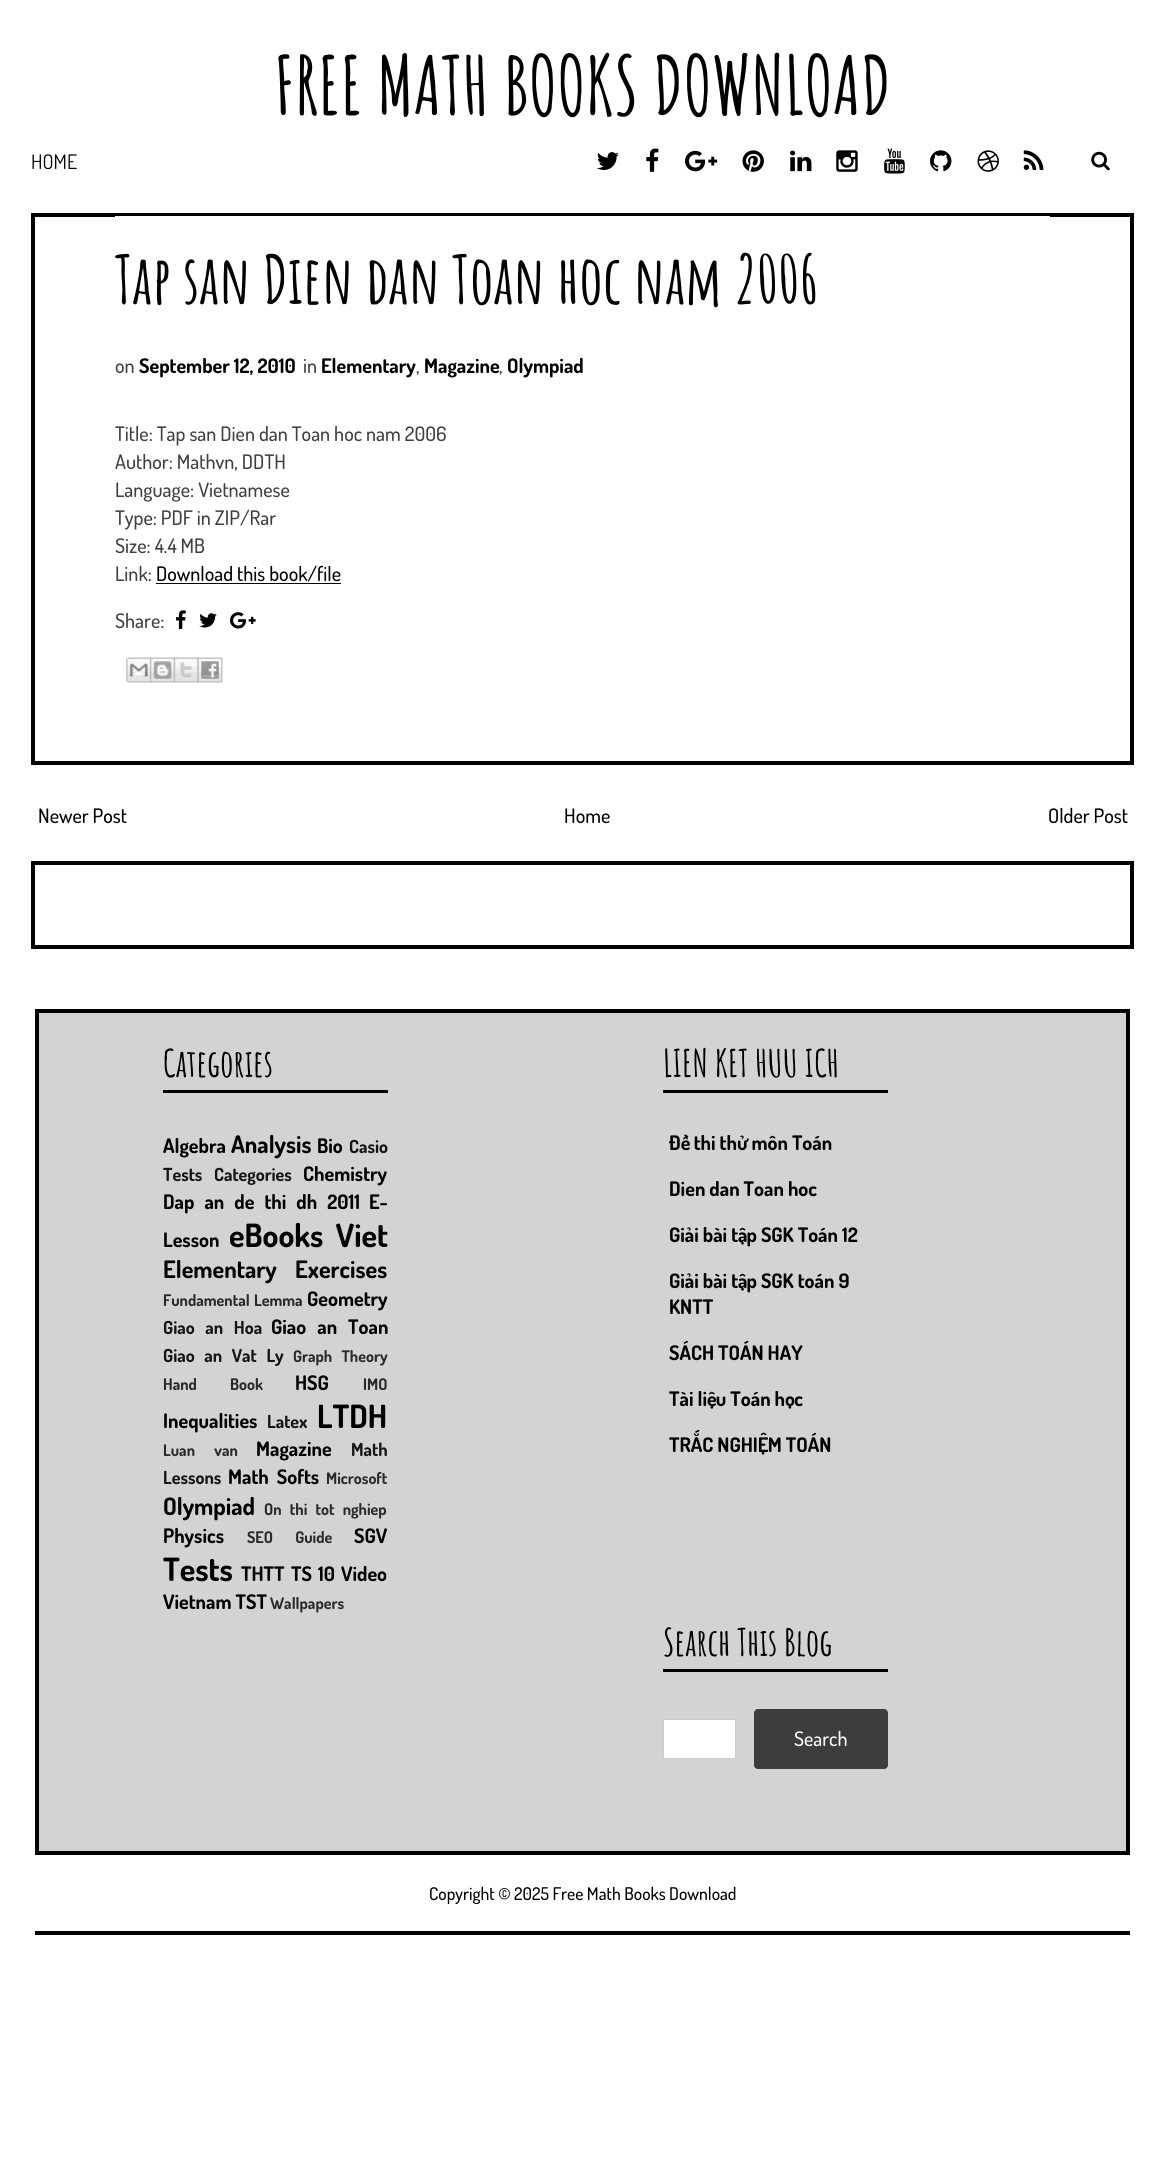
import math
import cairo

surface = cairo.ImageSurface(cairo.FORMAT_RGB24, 1164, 2176)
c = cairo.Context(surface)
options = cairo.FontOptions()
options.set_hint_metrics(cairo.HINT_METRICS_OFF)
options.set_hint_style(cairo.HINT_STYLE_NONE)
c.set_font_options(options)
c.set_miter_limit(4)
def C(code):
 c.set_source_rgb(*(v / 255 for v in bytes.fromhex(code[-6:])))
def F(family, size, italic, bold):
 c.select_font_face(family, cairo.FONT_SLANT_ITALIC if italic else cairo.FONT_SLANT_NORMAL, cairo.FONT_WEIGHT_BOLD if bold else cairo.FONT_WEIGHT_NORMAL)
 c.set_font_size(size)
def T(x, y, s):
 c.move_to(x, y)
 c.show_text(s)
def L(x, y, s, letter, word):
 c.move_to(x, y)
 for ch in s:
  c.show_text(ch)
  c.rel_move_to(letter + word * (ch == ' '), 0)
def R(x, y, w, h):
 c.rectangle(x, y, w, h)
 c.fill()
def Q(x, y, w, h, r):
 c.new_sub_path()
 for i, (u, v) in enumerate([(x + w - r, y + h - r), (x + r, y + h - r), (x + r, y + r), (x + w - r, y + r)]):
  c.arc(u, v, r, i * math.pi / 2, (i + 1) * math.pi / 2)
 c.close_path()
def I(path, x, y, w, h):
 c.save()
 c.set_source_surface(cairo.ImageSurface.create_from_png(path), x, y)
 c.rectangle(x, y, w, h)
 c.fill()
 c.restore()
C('ffffff')
c.paint()
F('Amatic SC',80,0,1)
C('000000')
T(274,115,'FREE MATH BOOKS DOWNLOAD')
F('Dosis',20,0,0)
T(31,169,'HOME')
I('1.png',597,152,22,18)
I('2.png',646,148,13,24)
I('3.png',685,150,33,22)
I('4.png',742,150,22,22)
I('5.png',790,150,22,22)
I('6.png',836,150,22,22)
I('7.png',884,148,21,26)
I('8.png',930,150,22,22)
I('9.png',977,150,22,22)
I('10.png',1023,150,21,20)
I('11.png',1091,151,19,20)
c.rectangle(33,215,1099,548)
c.set_line_width(4)
c.stroke()
C('ffffff')
R(115,216,935,1)
F('Amatic SC',66.25,0,1)
C('000000')
T(115,304,'Tap san Dien dan Toan hoc nam 2006')
F('Dosis Medium',20,0,0)
C('404040')
T(115,373,'on')
F('Dosis',20,0,1)
C('000000')
T(139,373,'September 12, 2010')
F('Dosis Medium',20,0,0)
C('404040')
T(303,373,'in')
F('Dosis',20,0,1)
C('000000')
T(321,373,'Elementary')
F('Dosis Medium',20,0,0)
C('404040')
T(416,373,',')
F('Dosis',20,0,1)
C('000000')
T(424,373,'Magazine')
F('Dosis Medium',20,0,0)
C('404040')
T(499,373,',')
F('Dosis',20,0,1)
C('000000')
T(507,373,'Olympiad')
F('Dosis Medium',20,0,0)
C('404040')
T(115,441,'Title: Tap san Dien dan Toan hoc nam 2006')
T(115,469,'Author: Mathvn, DDTH')
T(115,497,'Language: Vietnamese')
T(115,525,'Type: PDF in ZIP/Rar')
T(115,553,'Size: 4.4 MB')
T(115,581,'Link:')
C('000000')
T(156,581,'Download this book/file')
R(156,583,185,1)
C('404040')
T(115,628,'Share:')
I('12.png',176,610,10,19)
I('13.png',199,613,18,15)
I('14.png',230,612,26,17)
I('15.png',126,657,26,26)
I('16.png',150,657,25,26)
I('17.png',173,657,26,26)
I('18.png',197,657,26,26)
C('000000')
T(38,823,'Newer Post')
T(564,823,'Home')
T(1048,823,'Older Post')
c.rectangle(33,863,1099,84)
c.stroke()
C('d3d3d3')
c.rectangle(37,1011,1091,842)
c.fill_preserve()
C('000000')
c.stroke()
R(163,1090,225,3)
F('Amatic SC',37.5,0,1)
T(163,1077,'Categories')
F('Dosis',20,0,1)
T(163,1153,'Algebra')
F('Dosis',24,0,1)
T(231,1153,'Analysis')
F('Dosis',20,0,1)
T(317,1153,'Bio')
F('Dosis',18,0,1)
C('151515')
T(349,1153,'Casio')
T(163,1181,'Tests')
T(214,1181,'Categories')
F('Dosis',20,0,1)
C('000000')
T(303,1181,'Chemistry')
L(163,1209,'Dap an de thi dh 2011',0,6)
T(369,1209,'E-')
T(163,1247,'Lesson')
F('Dosis',32,0,1)
L(229,1247,'eBooks Viet',0,6)
F('Dosis',24,0,1)
T(163,1278,'Elementary')
T(295,1278,'Exercises')
F('Dosis',16,0,1)
C('2a2a2a')
L(163,1306,'Fundamental Lemma',0,1)
F('Dosis',20,0,1)
C('000000')
T(307,1306,'Geometry')
F('Dosis',18,0,1)
C('151515')
L(163,1334,'Giao an Hoa',0,7)
F('Dosis',20,0,1)
C('000000')
L(271,1334,'Giao an Toan',0,7)
F('Dosis',18,0,1)
C('151515')
L(163,1362,'Giao an Vat Ly',0,6)
F('Dosis',16,0,1)
C('2a2a2a')
L(293,1362,'Graph Theory',0,6)
L(163,1390,'Hand Book',0,30)
F('Dosis',20,0,1)
C('000000')
T(295,1390,'HSG')
F('Dosis',16,0,1)
C('2a2a2a')
T(363,1390,'IMO')
F('Dosis',20,0,1)
C('000000')
T(163,1428,'Inequalities')
F('Dosis',18,0,1)
C('151515')
T(267,1428,'Latex')
F('Dosis',32,0,1)
C('000000')
T(317,1428,'LTDH')
F('Dosis',16,0,1)
C('2a2a2a')
L(163,1456,'Luan van',0,16)
F('Dosis',20,0,1)
C('000000')
T(256,1456,'Magazine')
F('Dosis',18,0,1)
C('151515')
T(351,1456,'Math')
T(163,1484,'Lessons')
F('Dosis',20,0,1)
C('000000')
L(228,1484,'Math Softs',0,4)
F('Dosis',16,0,1)
C('2a2a2a')
T(326,1484,'Microsoft')
F('Dosis',24,0,1)
C('000000')
T(163,1515,'Olympiad')
F('Dosis',16,0,1)
C('2a2a2a')
L(264,1515,'On thi tot nghiep',0,5)
F('Dosis',20,0,1)
C('000000')
T(163,1543,'Physics')
F('Dosis',16,0,1)
C('2a2a2a')
L(247,1543,'SEO Guide',0,19)
F('Dosis',20,0,1)
C('000000')
T(354,1543,'SGV')
F('Dosis',32,0,1)
T(163,1581,'Tests')
F('Dosis',20,0,1)
T(241,1581,'THTT')
L(291,1581,'TS 10',0,2)
T(341,1581,'Video')
T(163,1609,'Vietnam TST')
F('Dosis',16,0,1)
C('2a2a2a')
T(270,1609,'Wallpapers')
C('000000')
R(663,1090,225,3)
F('Amatic SC',37.5,0,1)
T(663,1077,'LIEN KET HUU ICH')
F('Dosis',20,0,1)
T(669,1150,'Đề thi thử môn Toán')
T(669,1196,'Dien dan Toan hoc')
T(669,1242,'Giải bài tập SGK Toán 12')
T(669,1288,'Giải bài tập SGK toán 9')
T(669,1314,'KNTT')
T(669,1360,'SÁCH TOÁN HAY')
T(669,1406,'Tài liệu Toán học')
T(669,1452,'TRẮC NGHIỆM TOÁN')
R(663,1669,225,3)
F('Amatic SC',37.5,0,1)
T(663,1656,'Search This Blog')
C('ffffff')
c.rectangle(663.5,1719.5,72,39)
c.fill_preserve()
C('cccccc')
c.set_line_width(1)
c.stroke()
C('3d3d3d')
Q(754,1709,134,60,4)
c.fill()
F('Dosis Medium',20,0,0)
C('ffffff')
T(794,1746,'Search')
C('000000')
R(35,1931,1095,4)
F('Dosis Medium',17.5,0,0)
T(429,1900,'Copyright © 2025 Free Math Books Download')
surface.write_to_png('o.png')
